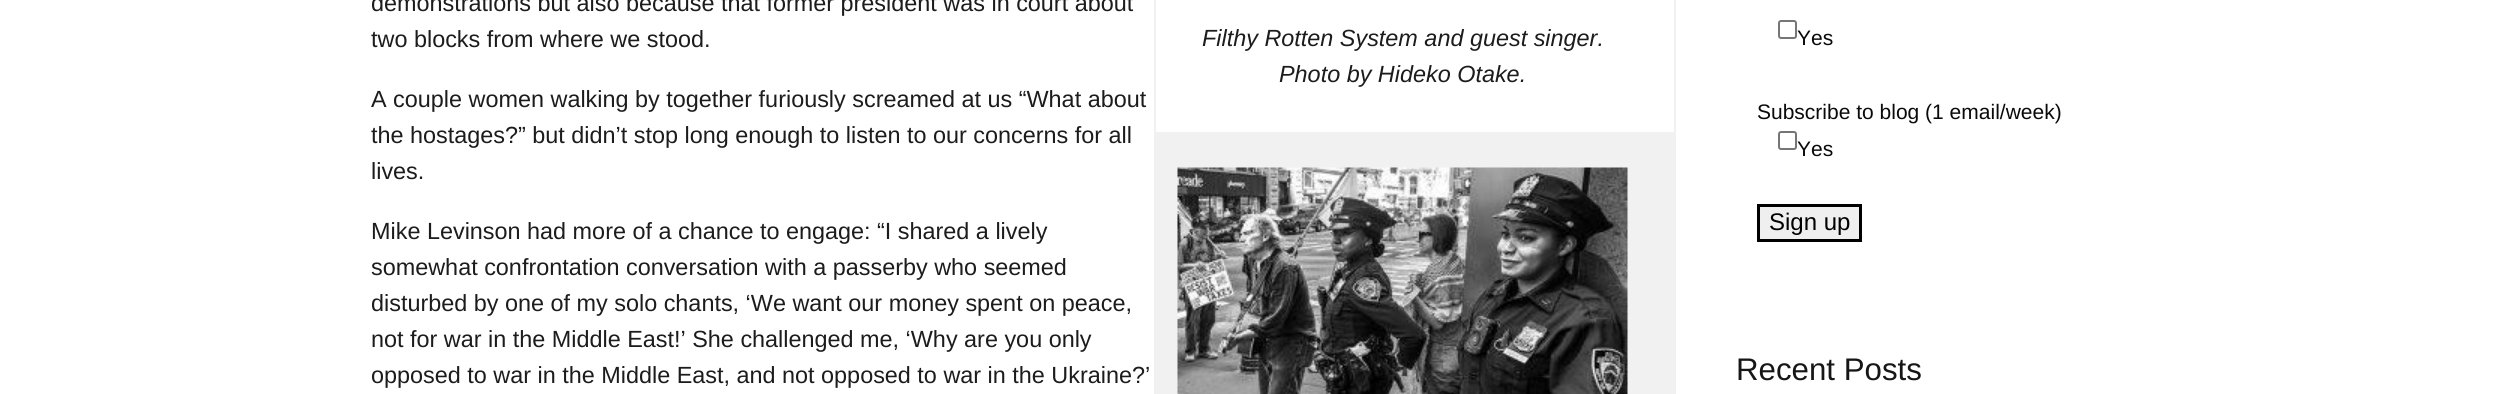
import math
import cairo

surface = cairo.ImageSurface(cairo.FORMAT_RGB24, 2496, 394)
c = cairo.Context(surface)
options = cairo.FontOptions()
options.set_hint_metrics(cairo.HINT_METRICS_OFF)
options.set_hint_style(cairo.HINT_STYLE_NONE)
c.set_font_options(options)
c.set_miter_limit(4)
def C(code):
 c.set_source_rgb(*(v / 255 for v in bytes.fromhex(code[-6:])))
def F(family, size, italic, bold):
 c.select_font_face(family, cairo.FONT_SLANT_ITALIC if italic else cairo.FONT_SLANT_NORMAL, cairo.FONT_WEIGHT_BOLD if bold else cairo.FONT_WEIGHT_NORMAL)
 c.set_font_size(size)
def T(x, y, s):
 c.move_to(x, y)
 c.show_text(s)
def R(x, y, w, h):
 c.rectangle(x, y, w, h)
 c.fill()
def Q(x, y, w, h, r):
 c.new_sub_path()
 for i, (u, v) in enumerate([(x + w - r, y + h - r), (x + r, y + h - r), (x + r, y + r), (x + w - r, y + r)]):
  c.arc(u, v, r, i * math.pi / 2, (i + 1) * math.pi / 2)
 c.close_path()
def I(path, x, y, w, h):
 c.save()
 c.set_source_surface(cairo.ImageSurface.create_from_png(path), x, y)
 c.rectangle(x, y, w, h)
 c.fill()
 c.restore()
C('ffffff')
c.paint()
F('Liberation Sans',23.4,0,0)
C('1c1c1c')
T(371,11,'demonstrations but also because that former president was in court about')
T(371,47,'two blocks from where we stood.')
C('f1f1f1')
R(1674,0,2,394)
R(1154,0,2,394)
F('Liberation Sans',23.4,1,0)
C('1c1c1c')
T(1202,46,'Filthy Rotten System and guest singer.')
T(1279,82,'Photo by Hideko Otake.')
C('f1f1f1')
R(1156,132,518,262)
I('1.png',1177,167,451,227)
F('Liberation Sans',23.4,0,0)
C('1c1c1c')
T(371,107,'A couple women walking by together furiously screamed at us “What about')
T(371,143,'the hostages?” but didn’t stop long enough to listen to our concerns for all')
T(371,179,'lives.')
T(371,239,'Mike Levinson had more of a chance to engage: “I shared a lively')
T(371,275,'somewhat confrontation conversation with a passerby who seemed')
T(371,311,'disturbed by one of my solo chants, ‘We want our money spent on peace,')
T(371,347,'not for war in the Middle East!’ She challenged me, ‘Why are you only')
T(371,383,'opposed to war in the Middle East, and not opposed to war in the Ukraine?’')
Q(1779,21,17,17,2)
C('767676')
c.stroke()
F('Liberation Sans',21,0,0)
C('0a0a0a')
T(1797,45,'Yes')
T(1757,119,'Subscribe to blog (1 email/week)')
Q(1779,132,17,17,2)
C('767676')
c.stroke()
C('0a0a0a')
T(1797,156,'Yes')
C('efefef')
c.rectangle(1758.5,205.5,102,35)
c.fill_preserve()
C('000000')
c.set_line_width(3)
c.stroke()
F('Liberation Sans',24,0,0)
T(1769,230,'Sign up')
F('Liberation Sans',31.25,0,0)
C('161616')
T(1736,380,'Recent Posts')
surface.write_to_png('o.png')
